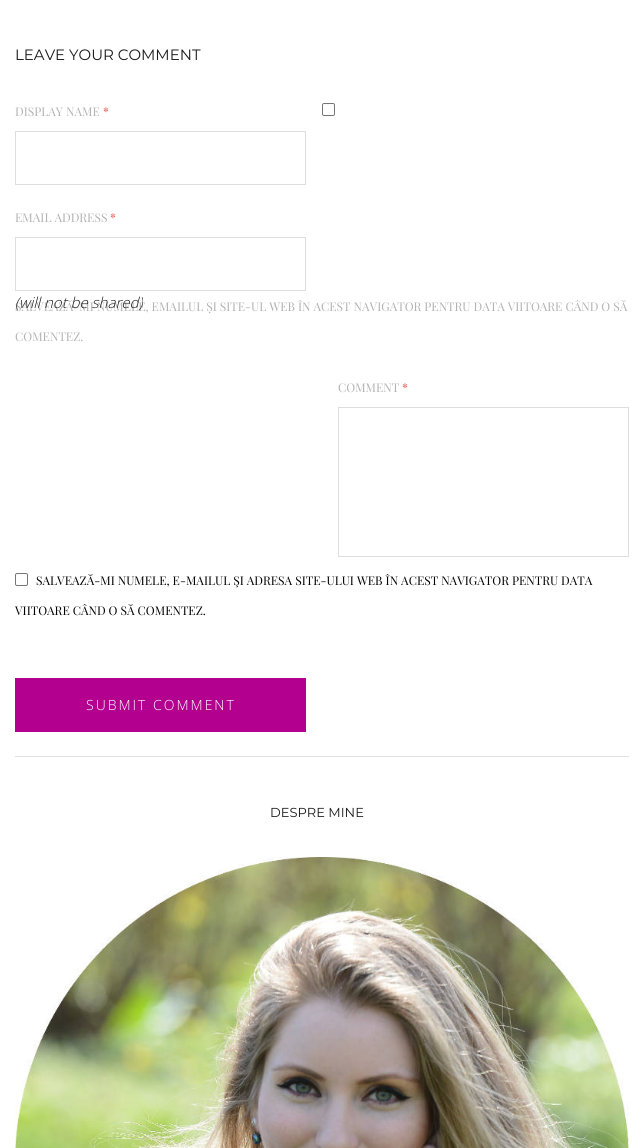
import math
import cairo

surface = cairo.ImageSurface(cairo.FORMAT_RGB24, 644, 1148)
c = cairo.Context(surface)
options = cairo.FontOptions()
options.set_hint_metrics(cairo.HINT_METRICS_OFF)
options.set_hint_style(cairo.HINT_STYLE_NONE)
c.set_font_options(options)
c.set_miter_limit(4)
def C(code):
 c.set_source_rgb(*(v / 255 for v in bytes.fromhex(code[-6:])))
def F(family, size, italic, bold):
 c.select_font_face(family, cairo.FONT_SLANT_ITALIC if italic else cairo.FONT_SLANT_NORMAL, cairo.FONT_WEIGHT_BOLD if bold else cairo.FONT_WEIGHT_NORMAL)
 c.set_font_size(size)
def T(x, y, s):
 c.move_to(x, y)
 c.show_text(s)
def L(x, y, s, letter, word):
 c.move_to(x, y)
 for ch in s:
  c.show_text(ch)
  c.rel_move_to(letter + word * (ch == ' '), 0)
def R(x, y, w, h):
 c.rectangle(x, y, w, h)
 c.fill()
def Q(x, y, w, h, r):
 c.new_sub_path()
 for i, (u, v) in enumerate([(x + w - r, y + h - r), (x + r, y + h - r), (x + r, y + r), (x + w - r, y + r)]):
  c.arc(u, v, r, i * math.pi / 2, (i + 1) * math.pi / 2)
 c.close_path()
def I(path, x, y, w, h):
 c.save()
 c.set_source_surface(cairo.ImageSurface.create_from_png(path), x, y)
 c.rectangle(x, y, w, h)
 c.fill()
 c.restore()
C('ffffff')
c.paint()
F('Montserrat Thin',15,0,0)
C('1a1a1a')
T(15,60,'LEAVE YOUR COMMENT')
F('Playfair Display',12,0,0)
C('b2b2b2')
T(15,116,'DISPLAY NAME')
C('e14d47')
T(103,116,'*')
c.rectangle(15.5,131.5,290,53)
C('dedede')
c.set_line_width(1)
c.stroke()
C('b2b2b2')
T(15,222,'EMAIL ADDRESS')
C('e14d47')
T(110,222,'*')
c.rectangle(15.5,237.5,290,53)
C('dedede')
c.stroke()
C('b2b2b2')
T(15,311,'SALVEAZĂ-MI NUMELE, EMAILUL ȘI SITE-UL WEB ÎN ACEST NAVIGATOR PENTRU DATA VIITOARE CÂND O SĂ')
F('Open Sans Light',15,1,0)
C('1a1a1a')
T(15,308,'(will not be shared)')
Q(322.5,103.5,12,12,1.5)
C('767676')
c.stroke()
F('Playfair Display',12,0,0)
C('b2b2b2')
T(15,341,'COMENTEZ.')
T(338,392,'COMMENT')
C('e14d47')
T(402,392,'*')
c.rectangle(338.5,407.5,290,149)
C('dedede')
c.stroke()
Q(15.5,573.5,12,12,1.5)
C('767676')
c.stroke()
C('000000')
T(36,585,'SALVEAZĂ-MI NUMELE, E-MAILUL ŞI ADRESA SITE-ULUI WEB ÎN ACEST NAVIGATOR PENTRU DATA')
T(15,615,'VIITOARE CÂND O SĂ COMENTEZ.')
C('b3008f')
R(15,678,291,54)
F('Open Sans Light',14,0,0)
C('ffffff')
L(86,710,'SUBMIT COMMENT',2,0)
C('dee0e1')
R(15,756,614,1)
F('Montserrat Thin',13,0,0)
C('1a1a1a')
T(270,817,'DESPRE MINE')
I('1.png',15,857,614,291)
surface.write_to_png('o.png')
